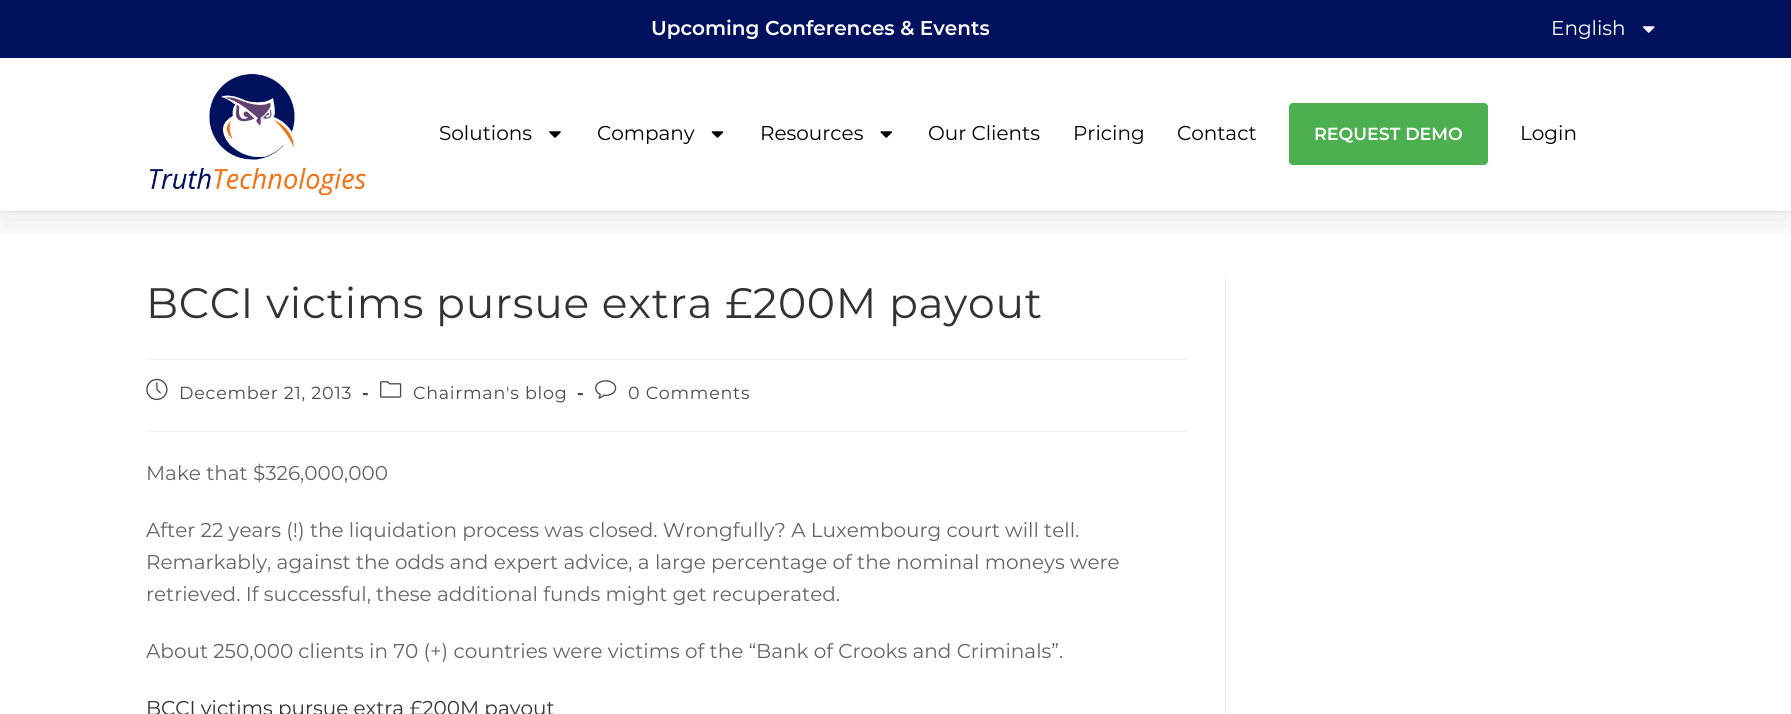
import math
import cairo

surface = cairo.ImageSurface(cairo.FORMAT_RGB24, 1791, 714)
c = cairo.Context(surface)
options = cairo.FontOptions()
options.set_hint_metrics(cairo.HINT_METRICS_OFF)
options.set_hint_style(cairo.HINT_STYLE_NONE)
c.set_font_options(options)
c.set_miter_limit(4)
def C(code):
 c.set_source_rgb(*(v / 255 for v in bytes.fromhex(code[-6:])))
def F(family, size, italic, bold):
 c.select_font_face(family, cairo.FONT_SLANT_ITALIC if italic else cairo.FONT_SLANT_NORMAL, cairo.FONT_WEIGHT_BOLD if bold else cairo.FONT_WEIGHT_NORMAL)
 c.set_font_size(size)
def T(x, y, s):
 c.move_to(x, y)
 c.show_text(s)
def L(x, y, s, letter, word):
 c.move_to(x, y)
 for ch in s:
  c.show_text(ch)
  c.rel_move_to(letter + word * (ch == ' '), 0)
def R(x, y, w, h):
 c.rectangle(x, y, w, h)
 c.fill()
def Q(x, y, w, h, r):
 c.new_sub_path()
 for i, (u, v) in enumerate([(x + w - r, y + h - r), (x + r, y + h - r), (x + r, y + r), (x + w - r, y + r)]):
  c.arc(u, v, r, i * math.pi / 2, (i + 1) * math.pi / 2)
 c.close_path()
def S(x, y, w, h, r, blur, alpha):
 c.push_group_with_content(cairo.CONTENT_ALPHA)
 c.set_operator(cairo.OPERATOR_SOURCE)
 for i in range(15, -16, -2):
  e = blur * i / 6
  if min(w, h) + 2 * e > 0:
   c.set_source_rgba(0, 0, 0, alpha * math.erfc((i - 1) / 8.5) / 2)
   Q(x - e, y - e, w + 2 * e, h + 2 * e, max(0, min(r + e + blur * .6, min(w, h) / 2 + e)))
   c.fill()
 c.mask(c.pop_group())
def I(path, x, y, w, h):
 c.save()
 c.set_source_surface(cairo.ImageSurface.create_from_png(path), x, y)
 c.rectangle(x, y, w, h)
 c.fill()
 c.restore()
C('ffffff')
c.paint()
C('f1f1f1')
R(0,211,1791,1)
R(1225,275,1,439)
c.save()
c.rectangle(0,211,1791,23)
c.clip()
C('000000')
S(0,64,1791,154,0,19,.1)
c.restore()
C('02115e')
R(0,0,1791,58)
F('Montserrat SemiBold',20,0,0)
C('ffffff')
T(651,35,'Upcoming Conferences & Events')
F('Montserrat',20,0,0)
T(1551,35,'English')
I('1.png',1643,26,12,7)
I('2.png',150,73,216,123)
C('000000')
T(439,140,'Solutions')
I('3.png',549,131,12,7)
T(597,140,'Company')
I('4.png',711,131,13,7)
T(760,140,'Resources')
I('5.png',880,131,12,7)
T(928,140,'Our Clients')
T(1073,140,'Pricing')
T(1177,140,'Contact')
C('4caf50')
Q(1289,103,199,62,4)
c.fill()
F('Montserrat SemiBold',17.5,0,0)
C('ffffff')
T(1314,140,'REQUEST DEMO')
F('Montserrat',20,0,0)
C('000000')
T(1520,140,'Login')
C('f1f1f1')
R(146,359,1042,1)
F('Montserrat',42.5,0,0)
C('333333')
L(146,318,'BCCI victims pursue extra £200M payout',.75,0)
C('f1f1f1')
R(146,431,1042,1)
I('6.png',146,378,22,23)
F('Montserrat',17.5,0,0)
C('4a4a4a')
L(179,399,'December 21, 2013',.75,0)
F('Montserrat',17.5,0,1)
L(362,399,'-',.75,0)
I('7.png',380,381,22,17)
F('Montserrat',17.5,0,0)
L(413,399,'Chairman\'s blog',.75,0)
F('Montserrat',17.5,0,1)
L(577,399,'-',.75,0)
I('8.png',595,380,22,19)
F('Montserrat',17.5,0,0)
L(628,399,'0 Comments',.75,0)
F('Montserrat',20,0,0)
C('646464')
T(146,480,'Make that $326,000,000')
T(146,537,'After 22 years (!) the liquidation process was closed. Wrongfully? A Luxembourg court will tell.')
T(146,569,'Remarkably, against the odds and expert advice, a large percentage of the nominal moneys were')
T(146,601,'retrieved. If successful, these additional funds might get recuperated.')
T(146,658,'About 250,000 clients in 70 (+) countries were victims of the “Bank of Crooks and Criminals”.')
C('333333')
T(146,715,'BCCI victims pursue extra £200M payout')
surface.write_to_png('o.png')
